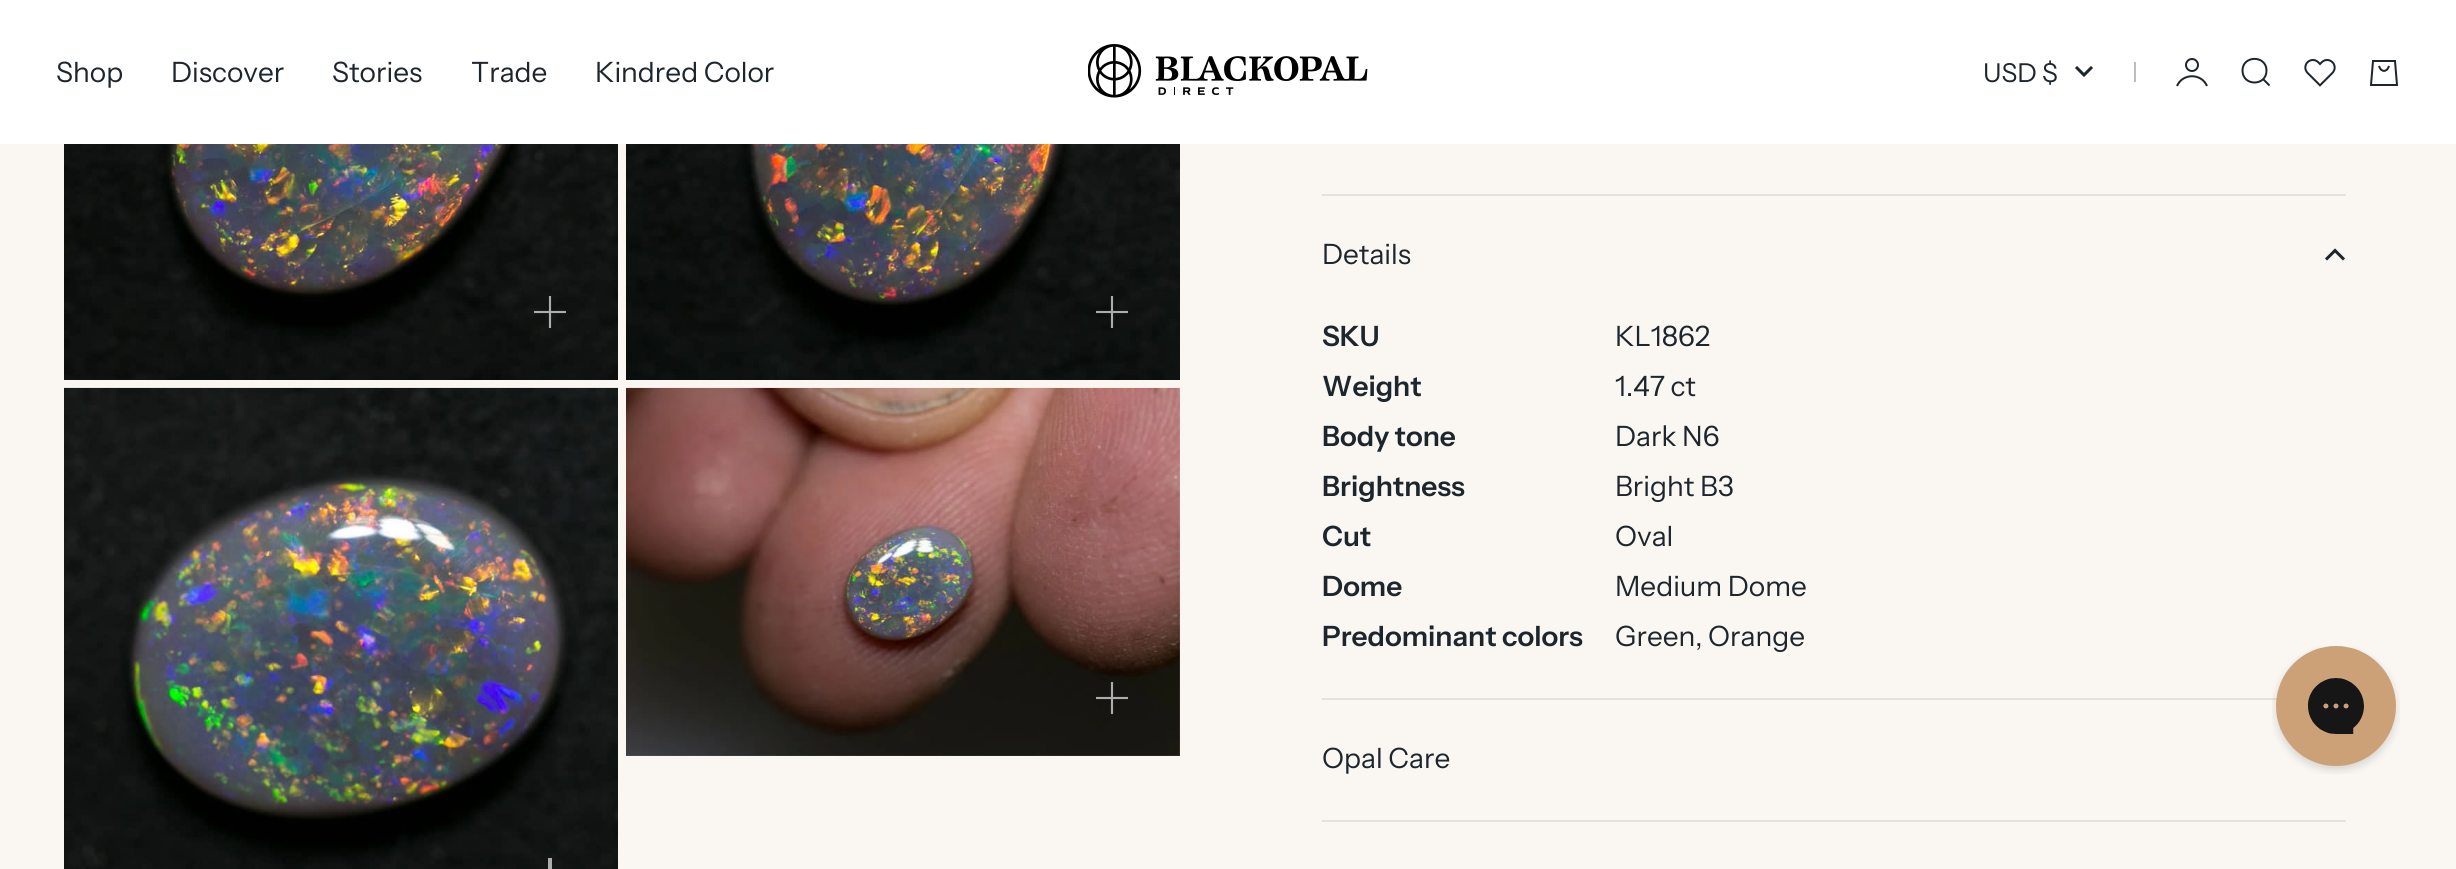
import math
import cairo

surface = cairo.ImageSurface(cairo.FORMAT_RGB24, 2456, 869)
c = cairo.Context(surface)
options = cairo.FontOptions()
options.set_hint_metrics(cairo.HINT_METRICS_OFF)
options.set_hint_style(cairo.HINT_STYLE_NONE)
c.set_font_options(options)
c.set_miter_limit(4)
def C(code):
 c.set_source_rgb(*(v / 255 for v in bytes.fromhex(code[-6:])))
def F(family, size, italic, bold):
 c.select_font_face(family, cairo.FONT_SLANT_ITALIC if italic else cairo.FONT_SLANT_NORMAL, cairo.FONT_WEIGHT_BOLD if bold else cairo.FONT_WEIGHT_NORMAL)
 c.set_font_size(size)
def T(x, y, s):
 c.move_to(x, y)
 c.show_text(s)
def R(x, y, w, h):
 c.rectangle(x, y, w, h)
 c.fill()
def I(path, x, y, w, h):
 c.save()
 c.set_source_surface(cairo.ImageSurface.create_from_png(path), x, y)
 c.rectangle(x, y, w, h)
 c.fill()
 c.restore()
C('faf7f3')
c.paint()
C('ffffff')
R(0,0,2456,144)
F('Instrument Sans',28,0,0)
C('1d252d')
T(56,82,'Shop')
T(171,82,'Discover')
T(332,82,'Stories')
T(471,82,'Trade')
T(595,82,'Kindred Color')
I('1.png',1088,44,280,54)
F('Instrument Sans',26,0,0)
T(1983,82,'USD $')
c.new_path()
c.move_to(2076,67)
c.line_to(2084,75)
c.line_to(2092,67)
c.set_line_width(3)
c.stroke()
C('bbbec0')
R(2134,62,2,20)
c.new_path()
c.move_to(2207,86)
c.curve_to(2201.5,73,2182.5,73,2177,86)
C('1d252d')
c.set_line_width(2)
c.stroke()
c.arc(2192,65,6,0,2 * math.pi)
c.stroke()
c.new_path()
c.move_to(2242.5,70.5)
c.curve_to(2242.5,86.5,2266.5,86.5,2266.5,70.5)
c.curve_to(2266.5,55,2242.5,55,2242.5,70.5)
c.close_path()
c.move_to(2263,79)
c.line_to(2269.5,85.5)
c.stroke()
I('2.png',2304,59,32,28)
c.new_path()
c.move_to(2371,85)
c.line_to(2373,61)
c.line_to(2395,61)
c.line_to(2397,85)
c.close_path()
c.move_to(2379,66)
c.curve_to(2381,72.5,2387,72.5,2389,66)
c.stroke()
I('3.png',64,144,554,236)
I('4.png',534,296,32,32)
I('5.png',626,144,554,236)
I('6.png',1096,296,32,32)
I('7.png',64,387,554,482)
C('adaead')
R(548,858,4,11)
I('8.png',626,387,554,369)
I('9.png',1096,682,32,32)
C('e4e2df')
R(1322,698,955,2)
R(1322,194,1024,2)
F('Instrument Sans',28,0,0)
C('1d252d')
T(1322,264,'Details')
c.new_path()
c.move_to(2326,259.5)
c.line_to(2335,250.5)
c.line_to(2344,259.5)
c.set_line_width(3)
c.stroke()
F('Instrument Sans SemiBold',28,0,0)
T(1322,346,'SKU')
F('Instrument Sans',28,0,0)
T(1615,346,'KL1862')
F('Instrument Sans SemiBold',28,0,0)
T(1322,396,'Weight')
F('Instrument Sans',28,0,0)
T(1615,396,'1.47 ct')
F('Instrument Sans SemiBold',28,0,0)
T(1322,446,'Body tone')
F('Instrument Sans',28,0,0)
T(1615,446,'Dark N6')
F('Instrument Sans SemiBold',28,0,0)
T(1322,496,'Brightness')
F('Instrument Sans',28,0,0)
T(1615,496,'Bright B3')
F('Instrument Sans SemiBold',28,0,0)
T(1322,546,'Cut')
F('Instrument Sans',28,0,0)
T(1615,546,'Oval')
F('Instrument Sans SemiBold',28,0,0)
T(1322,596,'Dome')
F('Instrument Sans',28,0,0)
T(1615,596,'Medium Dome')
F('Instrument Sans SemiBold',28,0,0)
T(1322,646,'Predominant colors')
F('Instrument Sans',28,0,0)
T(1615,646,'Green, Orange')
C('e4e2df')
R(1322,820,1024,2)
C('1d252d')
T(1322,768,'Opal Care')
I('10.png',2272,646,128,128)
surface.write_to_png('o.png')
